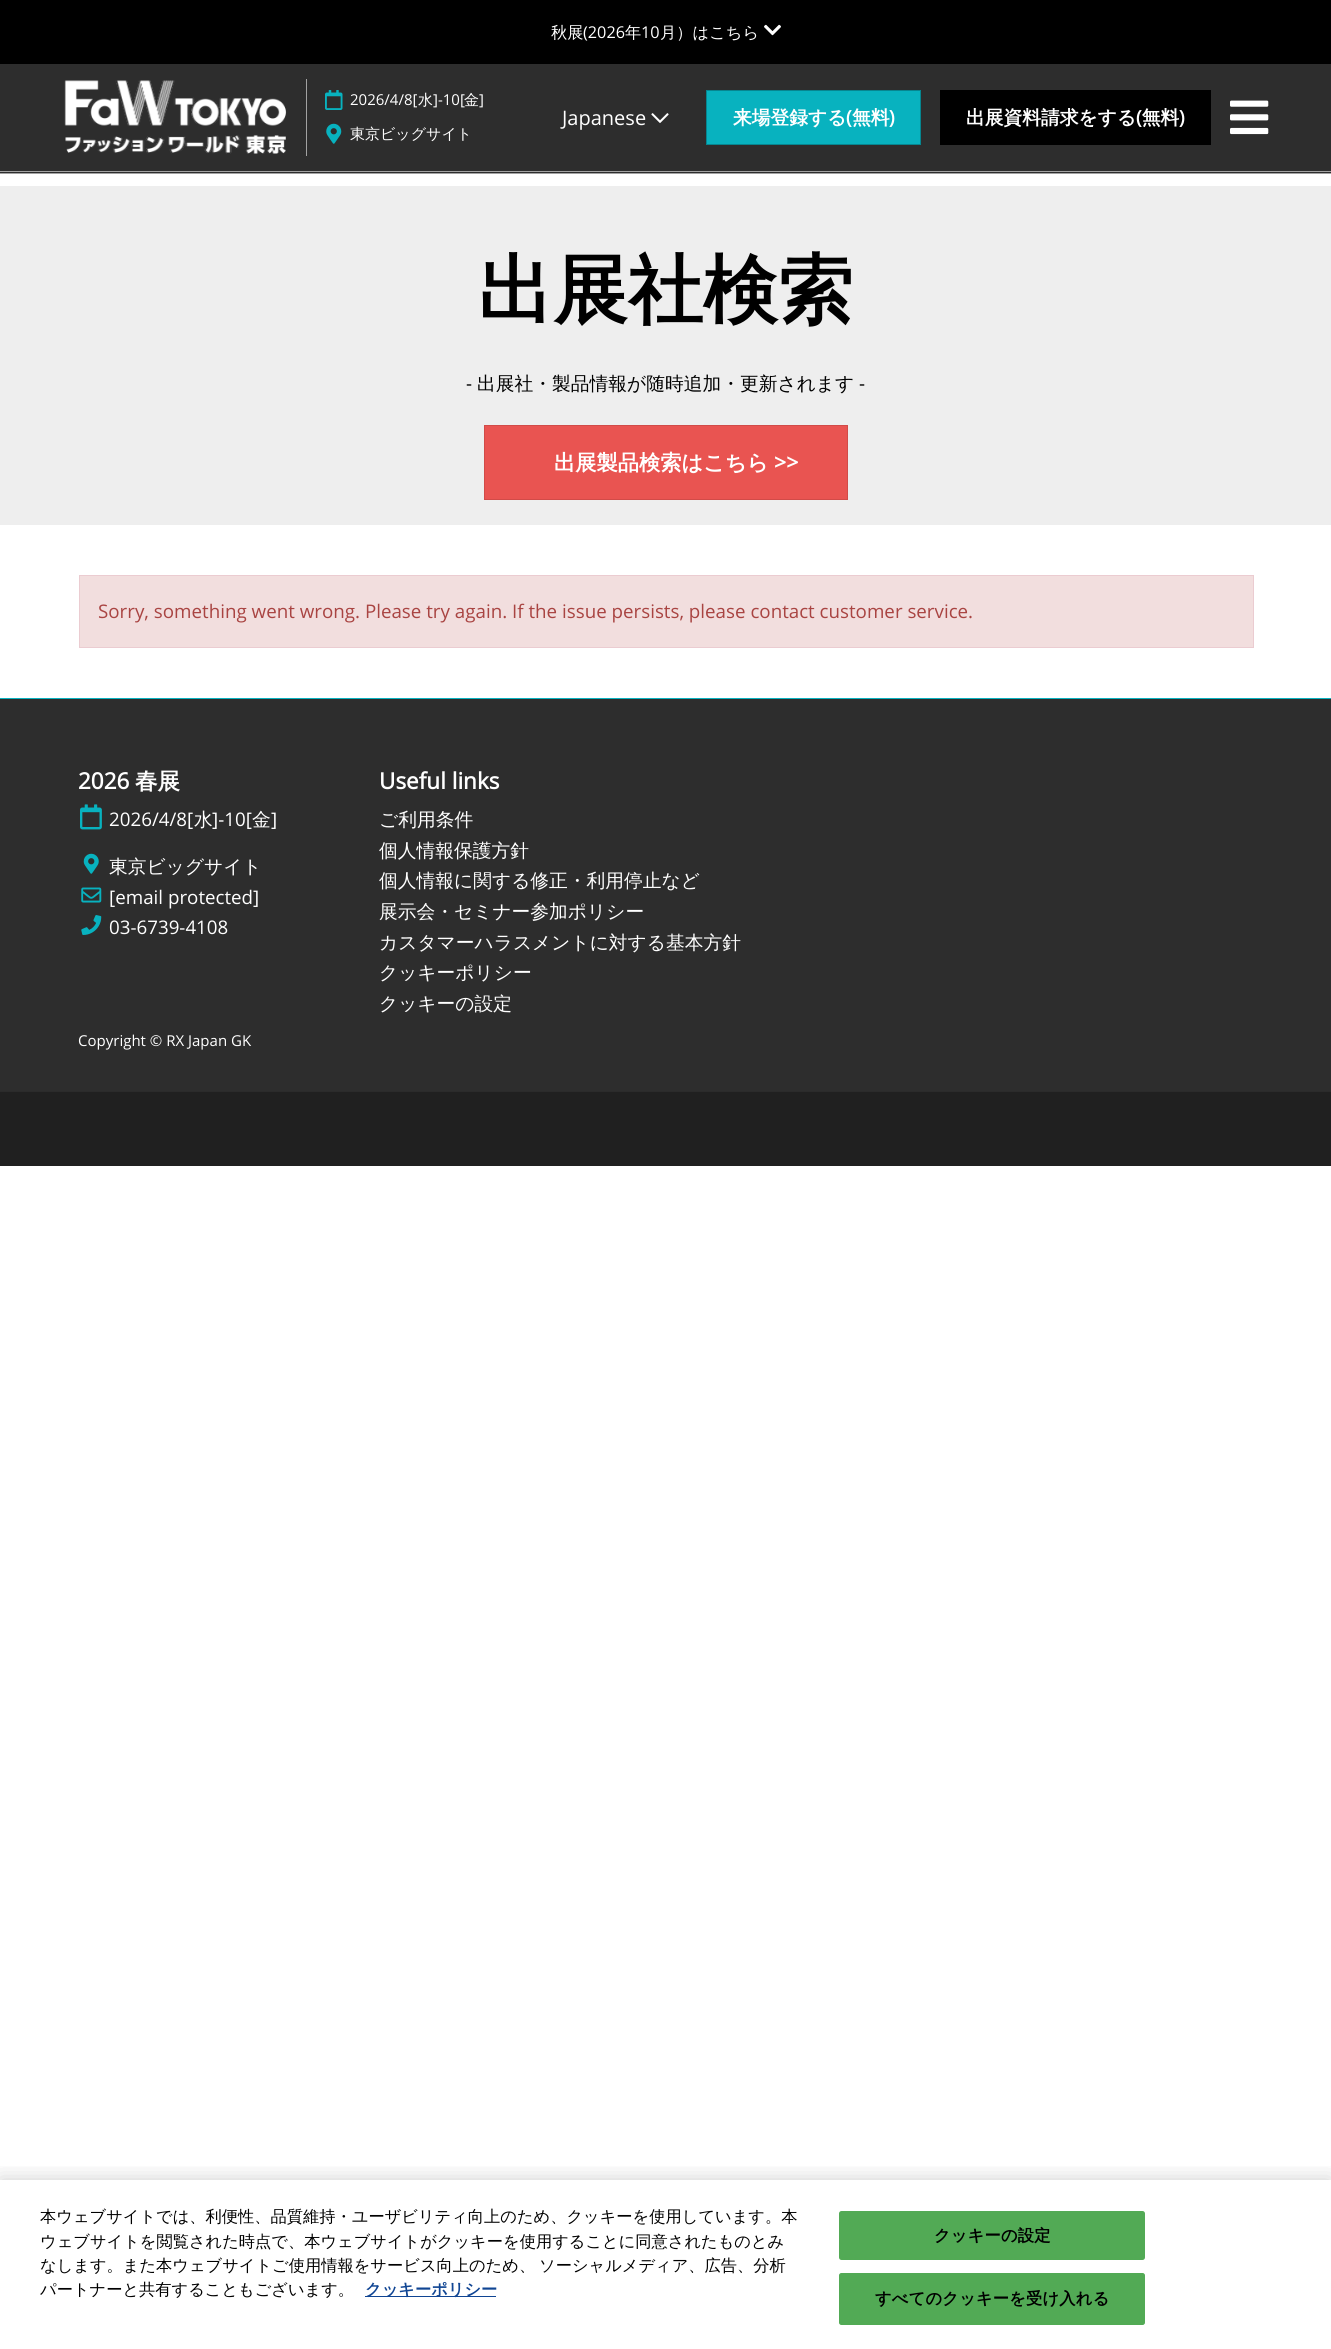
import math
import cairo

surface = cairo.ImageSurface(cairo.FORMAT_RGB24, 1331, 2349)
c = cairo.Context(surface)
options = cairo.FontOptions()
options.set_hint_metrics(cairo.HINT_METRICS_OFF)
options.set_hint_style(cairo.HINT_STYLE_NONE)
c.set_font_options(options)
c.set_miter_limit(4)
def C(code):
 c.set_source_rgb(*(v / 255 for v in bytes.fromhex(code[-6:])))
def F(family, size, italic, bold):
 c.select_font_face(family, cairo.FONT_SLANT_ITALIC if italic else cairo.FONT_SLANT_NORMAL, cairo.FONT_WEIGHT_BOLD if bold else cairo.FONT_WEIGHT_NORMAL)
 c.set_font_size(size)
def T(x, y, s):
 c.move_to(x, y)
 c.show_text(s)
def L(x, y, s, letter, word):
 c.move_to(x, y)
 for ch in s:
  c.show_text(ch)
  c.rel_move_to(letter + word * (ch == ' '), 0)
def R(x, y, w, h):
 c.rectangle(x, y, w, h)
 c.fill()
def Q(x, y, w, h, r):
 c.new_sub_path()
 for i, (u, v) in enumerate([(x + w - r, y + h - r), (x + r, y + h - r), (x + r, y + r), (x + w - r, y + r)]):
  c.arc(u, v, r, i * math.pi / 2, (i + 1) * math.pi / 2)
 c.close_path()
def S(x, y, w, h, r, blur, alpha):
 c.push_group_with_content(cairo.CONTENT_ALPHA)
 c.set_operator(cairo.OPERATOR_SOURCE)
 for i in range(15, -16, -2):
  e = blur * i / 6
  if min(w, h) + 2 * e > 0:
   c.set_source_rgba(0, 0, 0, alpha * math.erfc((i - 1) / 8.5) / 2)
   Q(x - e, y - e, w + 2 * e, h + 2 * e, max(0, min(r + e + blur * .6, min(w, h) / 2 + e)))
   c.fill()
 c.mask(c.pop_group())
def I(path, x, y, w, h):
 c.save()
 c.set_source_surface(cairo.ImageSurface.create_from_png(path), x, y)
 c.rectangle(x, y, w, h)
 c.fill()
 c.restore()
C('ffffff')
c.paint()
C('000000')
R(0,0,1331,64)
F('WenQuanYi Zen Hei Medium',16.25,0,0)
C('ffffff')
T(551,38,'秋展')
F('Open Sans',16.25,0,0)
T(583,38,'(2026')
F('WenQuanYi Zen Hei Medium',16.25,0,0)
T(625,38,'年')
F('Open Sans',16.25,0,0)
T(641,38,'10')
F('WenQuanYi Zen Hei Medium',16.25,0,0)
T(660,38,'月）はこちら')
I('1.png',764,24,17,12)
C('2d2d2d')
R(0,64,1331,109)
C('a2a2a2')
R(0,173,1331,1)
R(0,171,1331,1)
I('2.png',64,80,223,74)
R(306,79,1,77)
I('3.png',325,90,18,20)
F('Open Sans',15,0,0)
C('ffffff')
T(350,105,'2026/4/8[')
F('WenQuanYi Zen Hei Medium',15,0,0)
T(418,105,'水')
F('Open Sans',15,0,0)
T(433,105,']-10[')
F('WenQuanYi Zen Hei Medium',15,0,0)
T(464,105,'金')
F('Open Sans',15,0,0)
T(479,105,']')
I('4.png',326,123,16,21)
F('WenQuanYi Zen Hei Medium',15,0,0)
T(350,139,'東京ビッグサイト')
F('Open Sans',20,0,0)
T(562,125,'Japanese')
I('5.png',651,113,18,10)
C('08b2bf')
c.rectangle(706.5,90.5,214,54)
c.fill_preserve()
C('068690')
c.set_line_width(1)
c.stroke()
F('WenQuanYi Zen Hei',18.75,0,1)
C('ffffff')
T(733,124,'来場登録する 無料')
F('Open Sans',18.75,0,1)
T(846,124,'(')
T(889,124,')')
C('000000')
R(940,90,271,55)
F('WenQuanYi Zen Hei',18.75,0,1)
C('ffffff')
T(966,124,'出展資料請求をする 無料')
F('Open Sans',18.75,0,1)
T(1136,124,'(')
T(1179,124,')')
I('6.png',1230,100,39,35)
C('eeeeee')
R(0,186,1331,339)
F('WenQuanYi Zen Hei',75,0,1)
C('000000')
T(478,316,'出展社検索')
F('Open Sans',18.75,0,0)
T(466,390,'-')
F('WenQuanYi Zen Hei Medium',18.75,0,0)
T(477,390,'出展社・製品情報が随時追加・更新されます')
F('Open Sans',18.75,0,0)
T(859,390,'-')
C('e95451')
c.rectangle(484.5,425.5,363,74)
c.fill_preserve()
C('d14b48')
c.stroke()
F('WenQuanYi Zen Hei',21.25,0,1)
C('ffffff')
T(554,470,'出展製品検索はこちら')
F('Open Sans',21.25,0,1)
T(774,470,'>>')
C('f2dede')
c.rectangle(79.5,575.5,1174,72)
c.fill_preserve()
C('ebccd1')
c.stroke()
F('Open Sans',18.75,0,0)
C('a94442')
T(98,618,'Sorry, something went wrong. Please try again. If the issue persists, please contact customer service.')
C('2d2d2d')
R(0,699,1331,392)
C('08b2bf')
R(0,698,1331,1)
F('Open Sans',22.5,0,1)
C('ffffff')
T(78,789,'2026')
F('WenQuanYi Zen Hei',22.5,0,1)
T(135,789,'春展')
I('7.png',80,804,22,26)
F('Open Sans',18.75,0,0)
T(109,826,'2026/4/8[')
F('WenQuanYi Zen Hei Medium',18.75,0,0)
T(194,826,'水')
F('Open Sans',18.75,0,0)
T(212,826,']-10[')
F('WenQuanYi Zen Hei Medium',18.75,0,0)
T(252,826,'金')
F('Open Sans',18.75,0,0)
T(271,826,']')
I('8.png',83,853,16,21)
F('WenQuanYi Zen Hei Medium',18.75,0,0)
T(109,873,'東京ビッグサイト')
I('9.png',81,887,21,16)
F('Open Sans',18.75,0,0)
T(109,904,'[email protected]')
I('10.png',81,915,21,20)
T(109,934,'03-6739-4108')
F('Open Sans',22.5,0,1)
T(379,789,'Useful links')
F('WenQuanYi Zen Hei Medium',18.75,0,0)
T(379,826,'ご利用条件')
T(379,857,'個人情報保護方針')
T(379,887,'個人情報に関する修正・利用停止など')
T(379,918,'展示会・セミナー参加ポリシー')
T(379,949,'カスタマーハラスメントに対する基本方針')
T(379,979,'クッキーポリシー')
T(379,1010,'クッキーの設定')
F('Open Sans',15,0,0)
T(78,1046,'Copyright © RX Japan GK')
C('202020')
R(0,1092,1331,74)
C('2b2b2b')
R(0,1091,1331,1)
c.save()
c.rectangle(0,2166,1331,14)
c.clip()
C('000000')
S(0,2180,1331,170,0,11,.2)
c.restore()
F('WenQuanYi Zen Hei Medium',16.25,0,0)
C('000000')
T(40,2222,'本ウェブサイトでは、利便性、品質維持・ユーザビリティ向上のため、クッキーを使用しています。本')
T(40,2247,'ウェブサイトを閲覧された時点で、本ウェブサイトがクッキーを使用することに同意されたものとみ')
L(40,2271,'なします。また本ウェブサイトご使用情報をサービス向上のため、 ソーシャルメディア、広告、分析',0,-1)
T(40,2295,'パートナーと共有することもございます。')
C('104593')
R(365,2296,131,1)
F('WenQuanYi Zen Hei',16.25,0,1)
T(365,2295,'クッキーポリシー')
C('52aa55')
Q(839,2211,306,49,2.5)
c.fill()
C('000000')
L(934,2241,'クッキーの設定',.2,0)
C('52aa55')
Q(839.5,2273.5,305,51,2)
c.fill_preserve()
c.stroke()
C('000000')
L(875,2304,'すべてのクッキーを受け入れる',.2,0)
surface.write_to_png('o.png')
